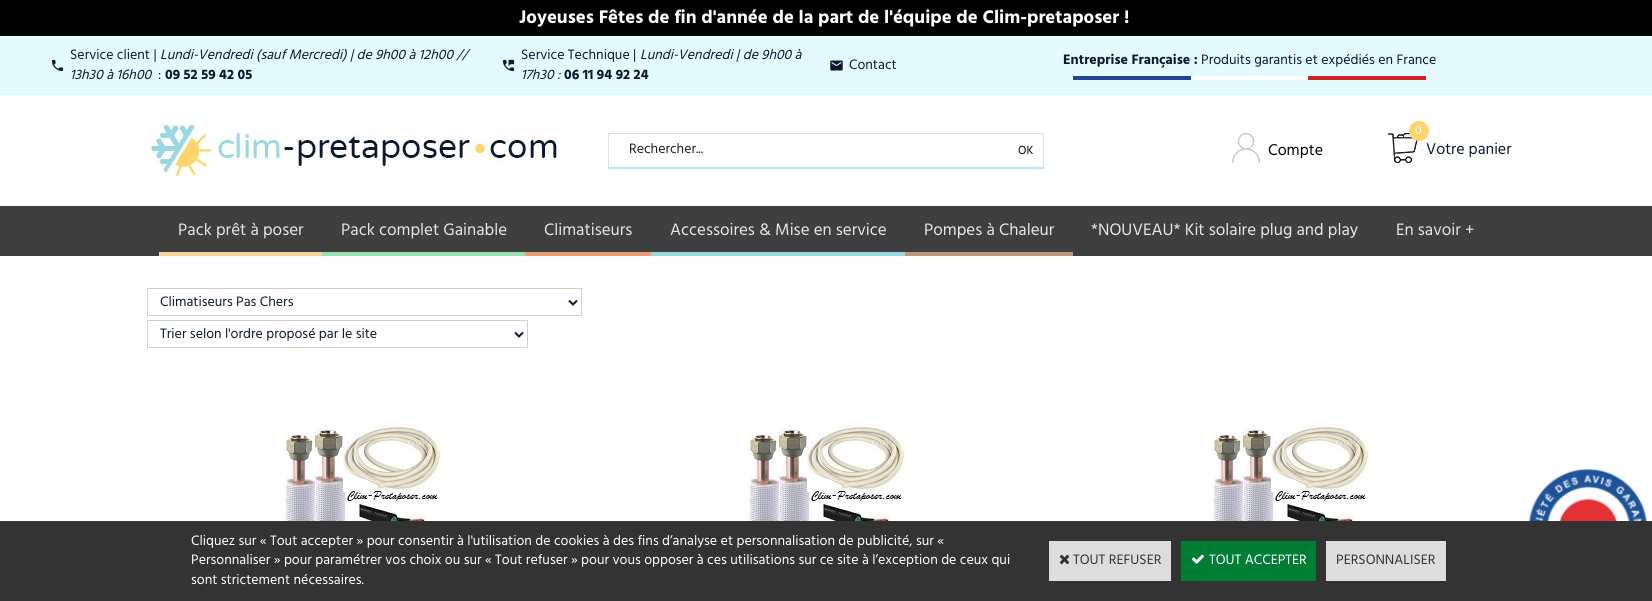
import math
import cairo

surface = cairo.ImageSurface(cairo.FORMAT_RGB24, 1652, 601)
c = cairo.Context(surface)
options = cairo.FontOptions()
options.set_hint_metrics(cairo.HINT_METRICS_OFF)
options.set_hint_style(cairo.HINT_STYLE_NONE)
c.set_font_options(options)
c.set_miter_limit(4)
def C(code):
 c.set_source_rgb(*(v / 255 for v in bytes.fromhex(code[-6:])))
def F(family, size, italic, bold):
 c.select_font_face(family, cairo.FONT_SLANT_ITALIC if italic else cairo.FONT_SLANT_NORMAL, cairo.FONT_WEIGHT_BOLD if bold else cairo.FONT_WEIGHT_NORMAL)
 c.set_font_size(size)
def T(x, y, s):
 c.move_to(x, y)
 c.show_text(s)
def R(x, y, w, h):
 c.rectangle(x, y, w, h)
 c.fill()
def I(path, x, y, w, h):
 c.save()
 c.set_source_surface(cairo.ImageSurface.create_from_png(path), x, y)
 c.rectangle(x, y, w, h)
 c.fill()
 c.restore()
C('ffffff')
c.paint()
C('000000')
R(0,0,1652,36)
F('Hind',18.7,0,1)
C('ffffff')
T(519,23,'Joyeuses Fêtes de fin d\'année de la part de l\'équipe de Clim-pretaposer !')
C('e3fafe')
R(0,36,1652,59)
I('1.png',51,59,13,13)
F('Hind',14,0,0)
C('0c1830')
T(70,59,'Service client |')
F('Hind',14,1,0)
T(160,59,'Lundi-Vendredi (sauf Mercredi) | de 9h00 à 12h00 //')
T(70,79,'13h30 à 16h00')
F('Hind',14,0,0)
T(158,79,':')
F('Hind',14,0,1)
T(165,79,'09 52 59 42 05')
I('2.png',502,59,13,13)
F('Hind',14,0,0)
T(521,59,'Service Technique |')
F('Hind',14,1,0)
T(640,59,'Lundi-Vendredi | de 9h00 à')
T(521,79,'17h30 :')
F('Hind',14,0,1)
T(564,79,'06 11 94 92 24')
I('3.png',830,60,13,11)
F('Hind',14,0,0)
T(849,69,'Contact')
F('Hind',14,0,1)
T(1063,64,'Entreprise Française :')
F('Hind',14,0,0)
T(1201,64,'Produits garantis et expédiés en France')
C('24449c')
R(1073,76,118,4)
C('ffffff')
R(1191,76,117,4)
C('cf2323')
R(1308,76,118,4)
I('4.png',151,125,407,51)
C('b1e9ef')
R(608,167,436,2)
C('dfdfdf')
R(608,133,436,1)
R(608,133,1,34)
C('1e1e1e')
T(629,153,'Rechercher...')
C('dfdfdf')
R(1043,133,1,34)
F('Hind',12,0,0)
C('000000')
T(1018,154,'OK')
I('5.png',1232,133,28,30)
F('Hind',16,0,0)
T(1268,155,'Compte')
I('6.png',1388,133,30,30)
C('ffd46c')
c.arc(1419,131,10,0,2 * math.pi)
c.fill()
F('Hind',12,0,0)
C('ffffff')
T(1415,134,'0')
F('Hind',16,0,0)
C('0c1830')
T(1426,154,'Votre panier')
C('3f3f3f')
R(0,206,1652,50)
C('f8d598')
R(159,252,163,4)
F('Hind',17,0,0)
C('e6e6e6')
T(178,235,'Pack prêt à poser')
C('9adfaf')
R(322,252,203,4)
C('e6e6e6')
T(341,235,'Pack complet Gainable')
C('eb9d75')
R(525,252,126,4)
C('e6e6e6')
T(544,235,'Climatiseurs')
C('97d7e1')
R(651,252,254,4)
C('e6e6e6')
T(670,235,'Accessoires & Mise en service')
C('be957c')
R(905,252,168,4)
C('e6e6e6')
T(924,235,'Pompes à Chaleur')
T(1091,235,'*NOUVEAU* Kit solaire plug and play')
T(1396,235,'En savoir +')
c.rectangle(147.5,288.5,434,27)
C('d0d0d0')
c.set_line_width(1)
c.stroke()
c.new_path()
c.move_to(569,300.5)
c.line_to(573,304.5)
c.line_to(577,300.5)
C('0c1830')
c.set_line_width(2)
c.stroke()
F('Hind',14,0,0)
T(160,306,'Climatiseurs Pas Chers')
c.rectangle(147.5,320.5,380,27)
C('d0d0d0')
c.set_line_width(1)
c.stroke()
c.new_path()
c.move_to(515,332.5)
c.line_to(519,336.5)
c.line_to(523,332.5)
C('0c1830')
c.set_line_width(2)
c.stroke()
T(160,338,'Trier selon l\'ordre proposé par le site')
I('7.png',281,425,161,96)
I('7.png',745,425,161,96)
I('7.png',1209,425,161,96)
C('333333')
R(0,521,1652,80)
C('ffffff')
T(191,545,'Cliquez sur « Tout accepter » pour consentir à l\'utilisation de cookies à des fins d’analyse et personnalisation de publicité, sur «')
T(191,564,'Personnaliser » pour paramétrer vos choix ou sur « Tout refuser » pour vous opposer à ces utilisations sur ce site à l’exception de ceux qui')
T(191,584,'sont strictement nécessaires.')
C('dddddd')
R(1049,541,122,40)
I('8.png',1059,554,11,11)
C('333333')
T(1073,564,'TOUT REFUSER')
C('007e33')
R(1181,541,135,40)
I('9.png',1192,554,12,10)
C('ffffff')
T(1209,564,'TOUT ACCEPTER')
C('dddddd')
R(1326,541,120,40)
C('333333')
T(1336,564,'PERSONNALISER')
I('10.png',1528,469,119,52)
surface.write_to_png('o.png')
